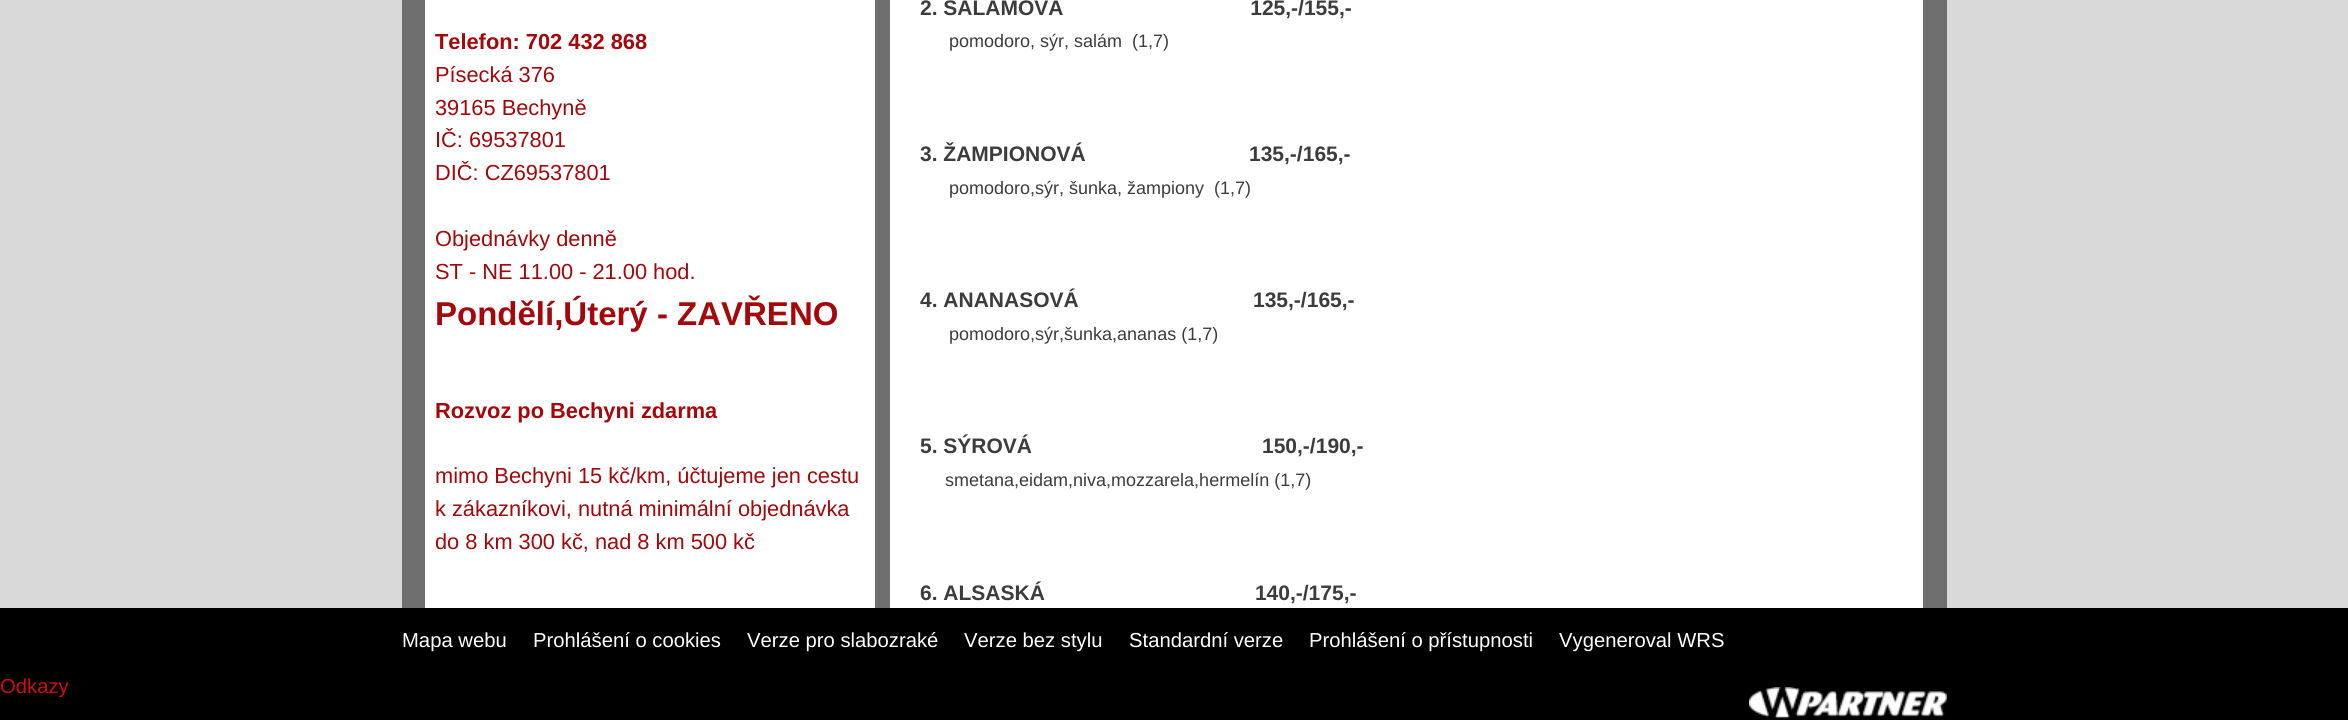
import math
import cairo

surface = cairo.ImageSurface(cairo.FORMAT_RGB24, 2348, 720)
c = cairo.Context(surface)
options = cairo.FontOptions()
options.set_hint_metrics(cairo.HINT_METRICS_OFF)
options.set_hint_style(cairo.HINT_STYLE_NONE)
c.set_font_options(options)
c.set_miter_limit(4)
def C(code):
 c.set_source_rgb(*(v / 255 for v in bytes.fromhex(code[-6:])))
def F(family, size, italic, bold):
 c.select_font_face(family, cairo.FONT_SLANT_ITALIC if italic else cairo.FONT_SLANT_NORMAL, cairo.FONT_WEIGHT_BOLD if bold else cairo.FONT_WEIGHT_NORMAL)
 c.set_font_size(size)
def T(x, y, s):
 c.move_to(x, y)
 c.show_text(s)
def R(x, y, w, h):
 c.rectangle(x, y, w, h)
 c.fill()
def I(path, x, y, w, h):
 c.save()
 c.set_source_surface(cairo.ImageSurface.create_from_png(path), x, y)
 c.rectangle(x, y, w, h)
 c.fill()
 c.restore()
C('d9d9d9')
c.paint()
C('6e6e6e')
R(402,0,1545,608)
C('ffffff')
R(425,0,450,608)
F('Liberation Sans',21.8,0,1)
C('a5070a')
T(435,49,'Telefon: 702 432 868')
F('Liberation Sans',21.8,0,0)
T(435,82,'Písecká 376')
T(435,115,'39165 Bechyně')
T(435,147,'IČ: 69537801')
T(435,180,'DIČ: CZ69537801')
T(435,246,'Objednávky denně')
T(435,279,'ST - NE 11.00 - 21.00 hod.')
F('Liberation Sans',33,0,1)
T(435,325,'Pondělí,Úterý - ZAVŘENO')
F('Liberation Sans',21.8,0,1)
T(435,418,'Rozvoz po Bechyni zdarma')
F('Liberation Sans',21.8,0,0)
T(435,483,'mimo Bechyni 15 kč/km, účtujeme jen cestu')
T(435,516,'k zákazníkovi, nutná minimální objednávka')
T(435,549,'do 8 km 300 kč, nad 8 km 500 kč')
C('ffffff')
R(890,0,1033,608)
F('Liberation Sans',21,0,1)
C('3c3c3c')
T(920,15,'2. SALÁMOVÁ                                125,-/155,-')
F('Liberation Sans',18,0,0)
T(949,47,'pomodoro, sýr, salám')
T(1132,47,'(1,7)')
F('Liberation Sans',21,0,1)
T(920,161,'3. ŽAMPIONOVÁ')
T(1249,161,'135,-/165,-')
F('Liberation Sans',18,0,0)
T(949,194,'pomodoro,sýr, šunka, žampiony')
T(1214,194,'(1,7)')
F('Liberation Sans',21,0,1)
T(920,307,'4. ANANASOVÁ')
T(1253,307,'135,-/165,-')
F('Liberation Sans',18,0,0)
T(949,340,'pomodoro,sýr,šunka,ananas (1,7)')
F('Liberation Sans',21,0,1)
T(920,453,'5. SÝROVÁ')
T(1262,453,'150,-/190,-')
F('Liberation Sans',18,0,0)
T(945,486,'smetana,eidam,niva,mozzarela,hermelín (1,7)')
F('Liberation Sans',21,0,1)
T(920,600,'6. ALSASKÁ                                    140,-/175,-')
C('000000')
R(0,608,2348,112)
F('Liberation Sans',20.25,0,0)
C('ffffff')
T(402,647,'Mapa webu')
T(533,647,'Prohlášení o cookies')
T(747,647,'Verze pro slabozraké')
T(964,647,'Verze bez stylu')
T(1129,647,'Standardní verze')
T(1309,647,'Prohlášení o přístupnosti')
T(1559,647,'Vygeneroval WRS')
I('1.png',1749,687,198,32)
C('d20a11')
T(0,693,'Odkazy')
surface.write_to_png('o.png')
